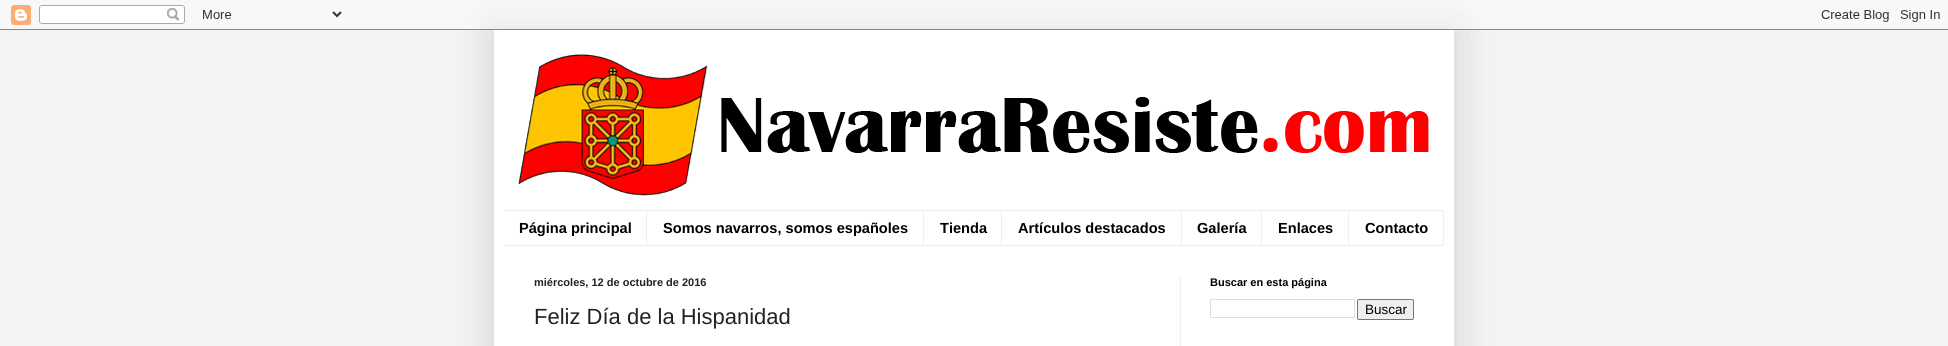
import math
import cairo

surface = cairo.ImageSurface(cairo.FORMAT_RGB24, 1948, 346)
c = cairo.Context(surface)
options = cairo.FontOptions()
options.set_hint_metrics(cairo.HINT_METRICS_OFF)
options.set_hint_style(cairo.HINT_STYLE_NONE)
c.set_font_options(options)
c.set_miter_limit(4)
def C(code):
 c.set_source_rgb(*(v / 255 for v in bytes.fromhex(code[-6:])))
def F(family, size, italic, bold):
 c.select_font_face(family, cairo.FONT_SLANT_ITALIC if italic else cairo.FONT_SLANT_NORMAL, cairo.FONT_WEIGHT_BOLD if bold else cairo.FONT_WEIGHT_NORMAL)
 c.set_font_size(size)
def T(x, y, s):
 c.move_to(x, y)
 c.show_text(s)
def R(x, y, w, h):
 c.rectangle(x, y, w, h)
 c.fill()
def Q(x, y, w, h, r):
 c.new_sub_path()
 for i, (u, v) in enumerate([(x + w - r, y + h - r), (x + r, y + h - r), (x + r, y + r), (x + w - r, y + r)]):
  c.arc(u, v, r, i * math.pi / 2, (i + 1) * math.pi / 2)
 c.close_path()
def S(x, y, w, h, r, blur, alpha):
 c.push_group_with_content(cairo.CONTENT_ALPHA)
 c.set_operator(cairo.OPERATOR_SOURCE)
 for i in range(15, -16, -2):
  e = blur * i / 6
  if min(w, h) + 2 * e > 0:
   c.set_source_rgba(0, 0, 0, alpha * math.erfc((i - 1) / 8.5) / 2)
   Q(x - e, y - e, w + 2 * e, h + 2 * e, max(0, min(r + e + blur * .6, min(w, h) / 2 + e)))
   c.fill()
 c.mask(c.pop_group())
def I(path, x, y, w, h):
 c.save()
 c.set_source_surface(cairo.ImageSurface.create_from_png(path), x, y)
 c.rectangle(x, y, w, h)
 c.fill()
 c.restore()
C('f3f3f3')
c.paint()
C('000000')
S(494,30,960,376,0,20,.15)
I('1.png',0,0,1948,30)
C('ffffff')
R(494,30,960,316)
I('2.png',518,54,911,142)
C('eeeeee')
R(504,210,940,1)
R(504,245,940,1)
R(646,211,1,34)
F('Liberation Sans',14.6,0,1)
C('000000')
T(519,233,'Página principal')
C('eeeeee')
R(923,211,1,34)
C('000000')
T(663,233,'Somos navarros, somos españoles')
C('eeeeee')
R(1001,211,1,34)
C('000000')
T(940,233,'Tienda')
C('eeeeee')
R(1181,211,1,34)
C('000000')
T(1018,233,'Artículos destacados')
C('eeeeee')
R(1261,211,1,34)
C('000000')
T(1197,233,'Galería')
C('eeeeee')
R(1348,211,1,34)
C('000000')
T(1278,233,'Enlaces')
C('eeeeee')
R(1443,211,1,34)
C('000000')
T(1365,233,'Contacto')
C('eeeeee')
R(1180,276,1,70)
F('Liberation Sans',11,0,1)
C('222222')
T(534,286,'miércoles, 12 de octubre de 2016')
F('Liberation Sans',22,0,0)
T(534,324,'Feliz Día de la Hispanidad')
F('Liberation Sans',11,0,1)
C('000000')
T(1210,286,'Buscar en esta página')
c.rectangle(1210.5,299.5,144,18)
C('dddddd')
c.set_line_width(1)
c.stroke()
C('efefef')
Q(1357.5,299.5,56,20,1.5)
c.fill_preserve()
C('767676')
c.stroke()
F('Liberation Sans',13.5,0,0)
C('000000')
T(1365,314,'Buscar')
surface.write_to_png('o.png')
